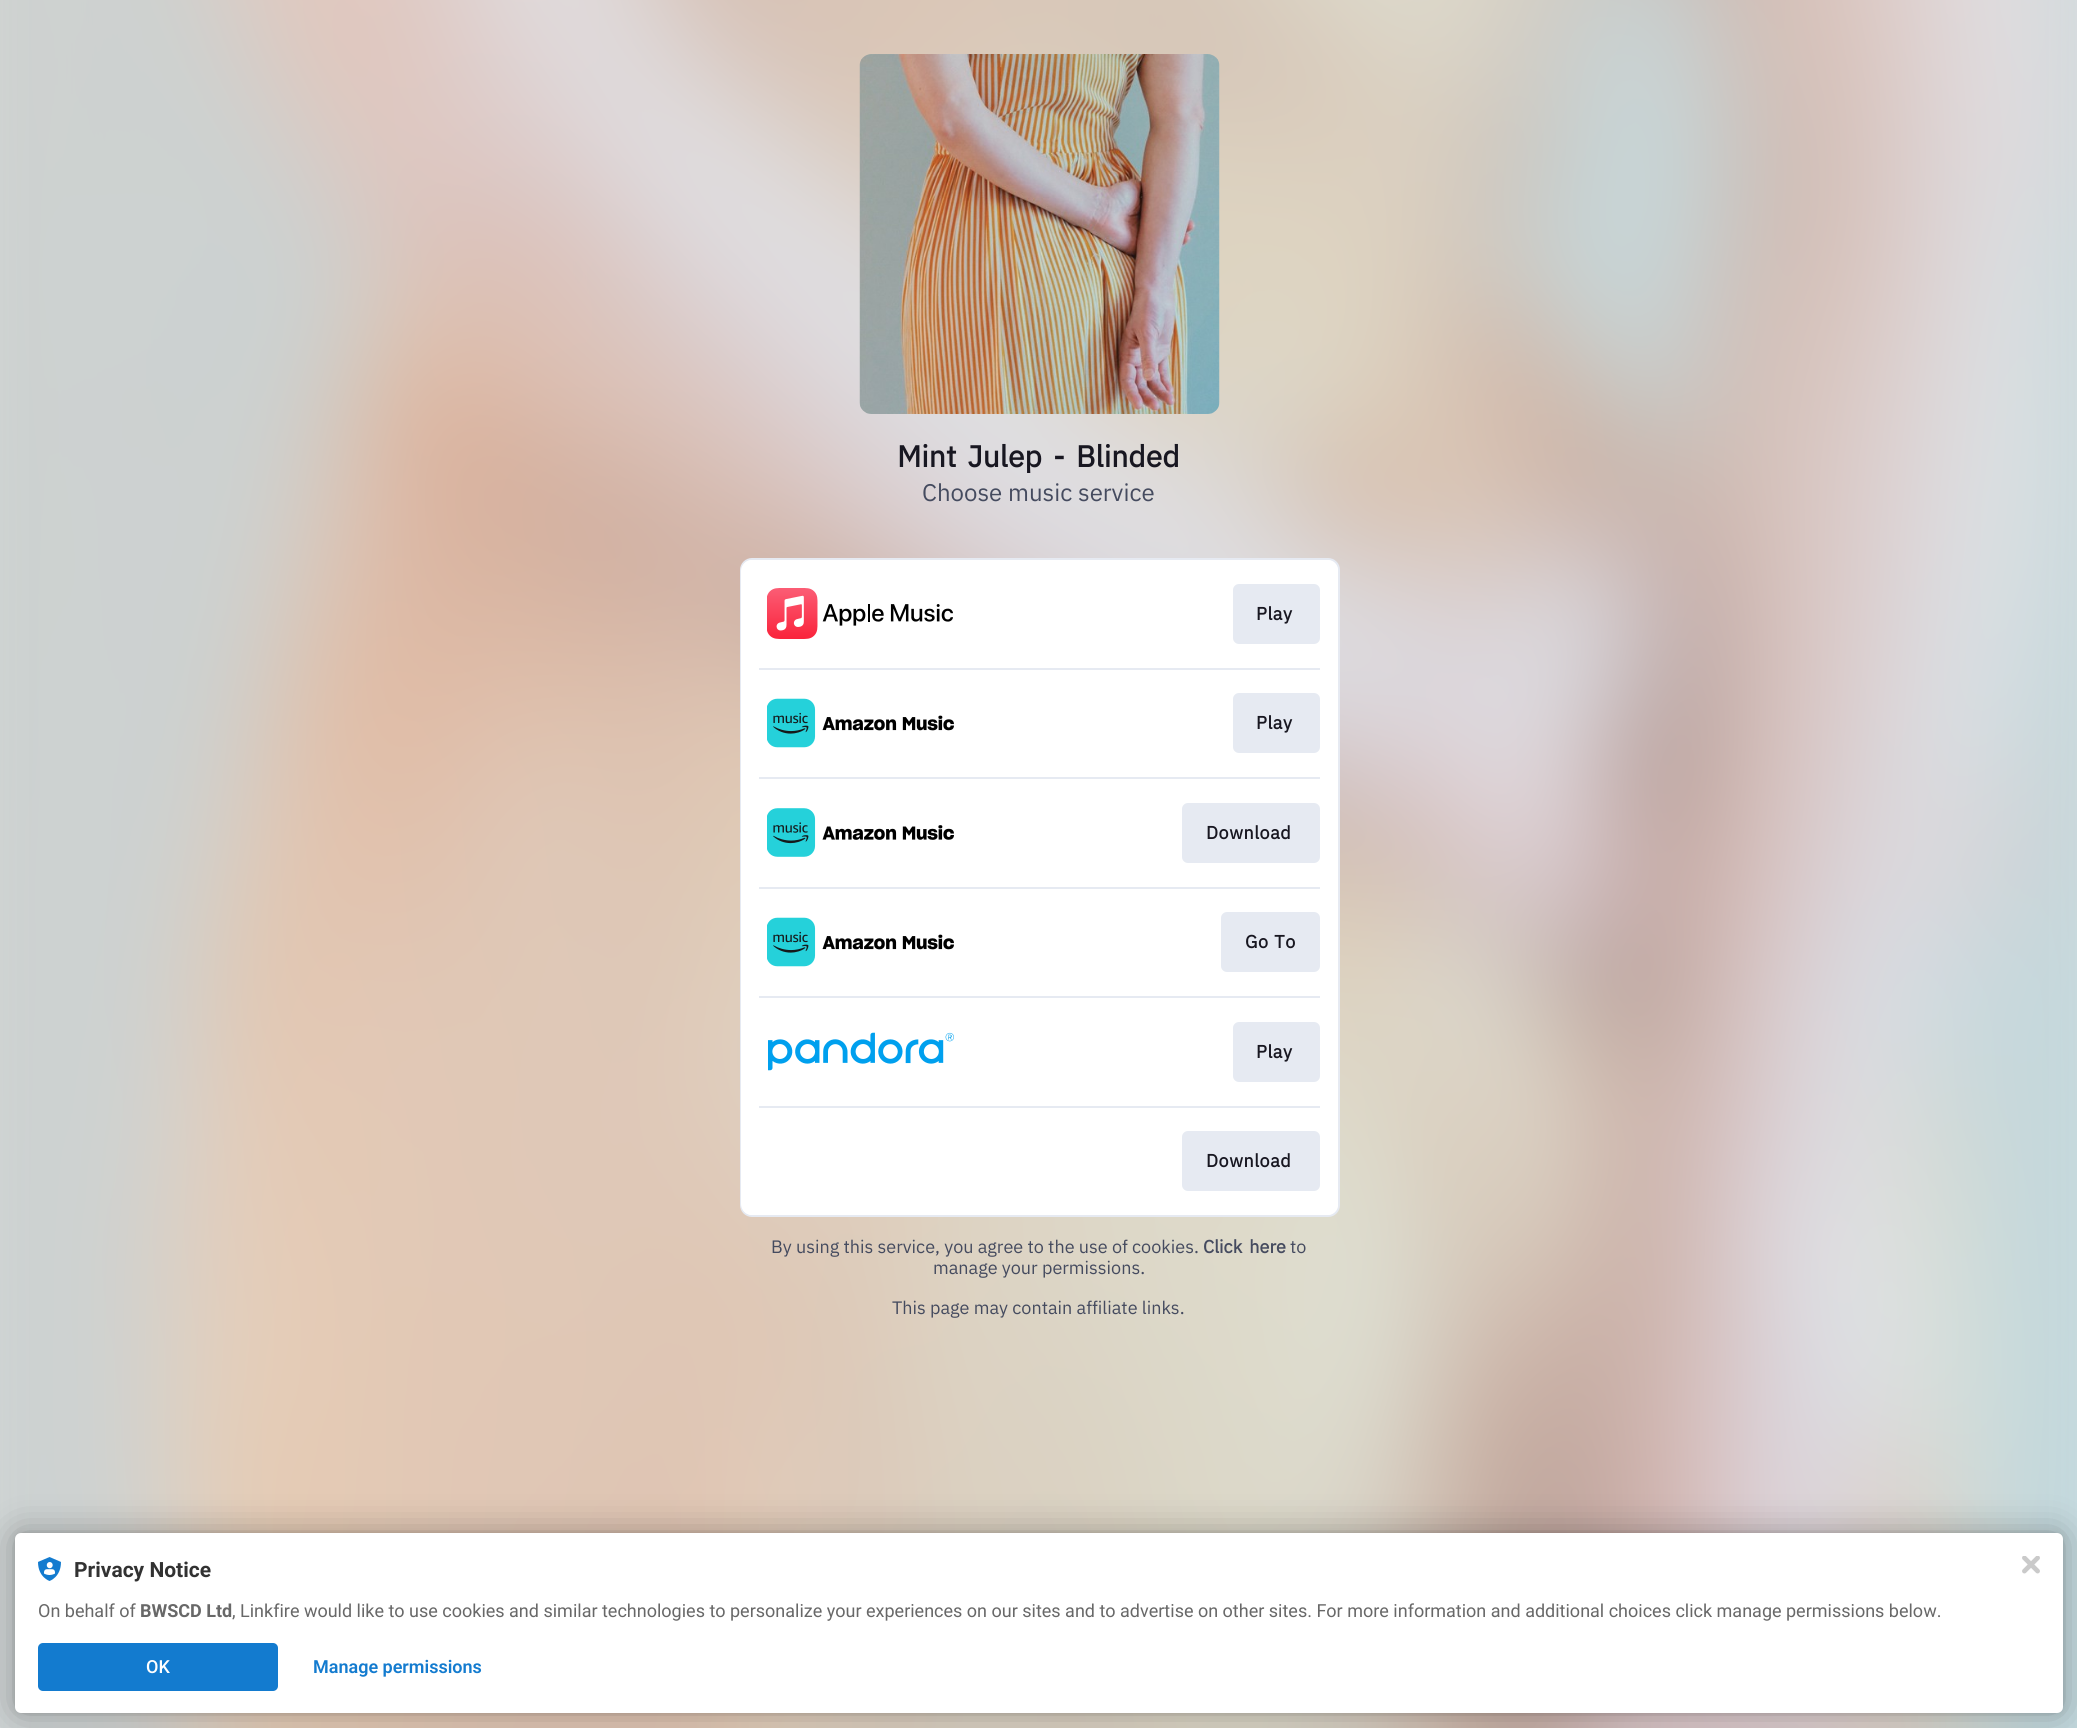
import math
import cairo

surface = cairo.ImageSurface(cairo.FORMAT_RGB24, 2077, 1728)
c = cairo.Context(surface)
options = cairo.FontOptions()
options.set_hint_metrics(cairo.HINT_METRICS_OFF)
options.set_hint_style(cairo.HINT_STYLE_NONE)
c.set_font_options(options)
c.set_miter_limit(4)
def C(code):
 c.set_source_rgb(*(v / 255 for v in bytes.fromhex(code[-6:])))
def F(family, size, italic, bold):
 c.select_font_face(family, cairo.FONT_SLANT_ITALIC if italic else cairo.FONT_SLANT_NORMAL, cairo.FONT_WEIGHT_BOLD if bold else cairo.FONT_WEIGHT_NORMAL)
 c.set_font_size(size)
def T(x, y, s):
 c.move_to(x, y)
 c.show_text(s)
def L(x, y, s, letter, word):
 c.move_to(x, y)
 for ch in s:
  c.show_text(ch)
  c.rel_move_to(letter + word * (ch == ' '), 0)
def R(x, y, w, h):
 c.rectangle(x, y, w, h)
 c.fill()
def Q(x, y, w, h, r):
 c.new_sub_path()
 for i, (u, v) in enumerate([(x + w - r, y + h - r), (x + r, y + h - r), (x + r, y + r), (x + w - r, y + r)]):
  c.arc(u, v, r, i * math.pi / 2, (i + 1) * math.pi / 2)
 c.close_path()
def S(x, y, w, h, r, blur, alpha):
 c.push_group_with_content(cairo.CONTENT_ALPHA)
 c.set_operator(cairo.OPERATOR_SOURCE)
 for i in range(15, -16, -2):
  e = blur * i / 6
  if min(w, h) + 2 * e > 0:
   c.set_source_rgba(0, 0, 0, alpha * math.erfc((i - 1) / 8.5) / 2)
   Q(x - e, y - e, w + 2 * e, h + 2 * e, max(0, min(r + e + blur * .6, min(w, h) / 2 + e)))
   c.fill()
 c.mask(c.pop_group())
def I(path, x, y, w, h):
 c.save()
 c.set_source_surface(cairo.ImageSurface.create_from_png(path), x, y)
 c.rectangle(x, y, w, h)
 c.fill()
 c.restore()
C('ffffff')
c.paint()
I('1.png',0,0,2077,1728)
I('2.png',859,54,361,360)
F('IBM Plex Sans',30,0,1)
C('181721')
L(897,467,'Mint Julep - Blinded',0,4)
F('IBM Plex Sans',24,0,0)
C('454b5f')
T(922,501,'Choose music service')
C('ffffff')
Q(741,559,598,657,11)
c.fill_preserve()
C('e6eaf2')
c.stroke()
C('ffffff')
Q(741,560,597,655,11)
c.fill()
I('3.png',767,588,186,51)
C('e6eaf2')
Q(1233,584,87,60,6)
c.fill()
F('IBM Plex Sans',18,0,1)
C('181721')
L(1256,620,'Play',.5,0)
C('e6eaf2')
R(759,668,561,2)
I('4.png',767,698,187,50)
Q(1233,693,87,60,6)
c.fill()
C('181721')
L(1256,729,'Play',.5,0)
C('e6eaf2')
R(759,777,561,2)
I('5.png',767,808,187,49)
Q(1182,803,138,60,6)
c.fill()
C('181721')
L(1206,839,'Download',.5,0)
C('e6eaf2')
R(759,887,561,2)
I('4.png',767,917,187,50)
Q(1221,912,99,60,6)
c.fill()
C('181721')
L(1245,948,'Go To',.5,1)
C('e6eaf2')
R(759,996,561,2)
I('6.png',768,1032,186,39)
Q(1233,1022,87,60,6)
c.fill()
C('181721')
L(1256,1058,'Play',.5,0)
C('e6eaf2')
R(759,1106,561,2)
Q(1182,1131,138,60,6)
c.fill()
C('181721')
L(1206,1167,'Download',.5,0)
F('IBM Plex Sans',18,0,0)
C('454b5f')
T(771,1253,'By using this service, you agree to the use of cookies.')
F('IBM Plex Sans',18,0,1)
L(1203,1253,'Click here',0,3)
F('IBM Plex Sans',18,0,0)
T(1290,1253,'to')
T(933,1274,'manage your permissions.')
T(892,1314,'This page may contain affiliate links.')
C('000000')
S(15,1533,2048,180,6,3,.12)
S(15,1533,2048,180,6,18,.3)
C('ffffff')
Q(15,1533,2048,180,6)
c.fill()
I('7.png',38,1557,23,24)
F('Roboto',21,0,1)
C('323232')
T(74,1577,'Privacy Notice')
F('Roboto',18,0,0)
C('686868')
T(38,1617,'On behalf of')
F('Roboto',18,0,1)
T(140,1617,'BWSCD Ltd')
F('Roboto',18,0,0)
T(232,1617,', Linkfire would like to use cookies and similar technologies to personalize your experiences on our sites and to advertise on other sites. For more information and additional choices click manage permissions below.')
C('137bcf')
Q(38,1643,240,48,5)
c.fill()
F('Roboto Medium',18,0,0)
C('ffffff')
T(146,1673,'OK')
F('Roboto SemiBold',18,0,0)
C('137bcf')
T(313,1673,'Manage permissions')
I('8.png',2022,1556,18,18)
surface.write_to_png('o.png')
